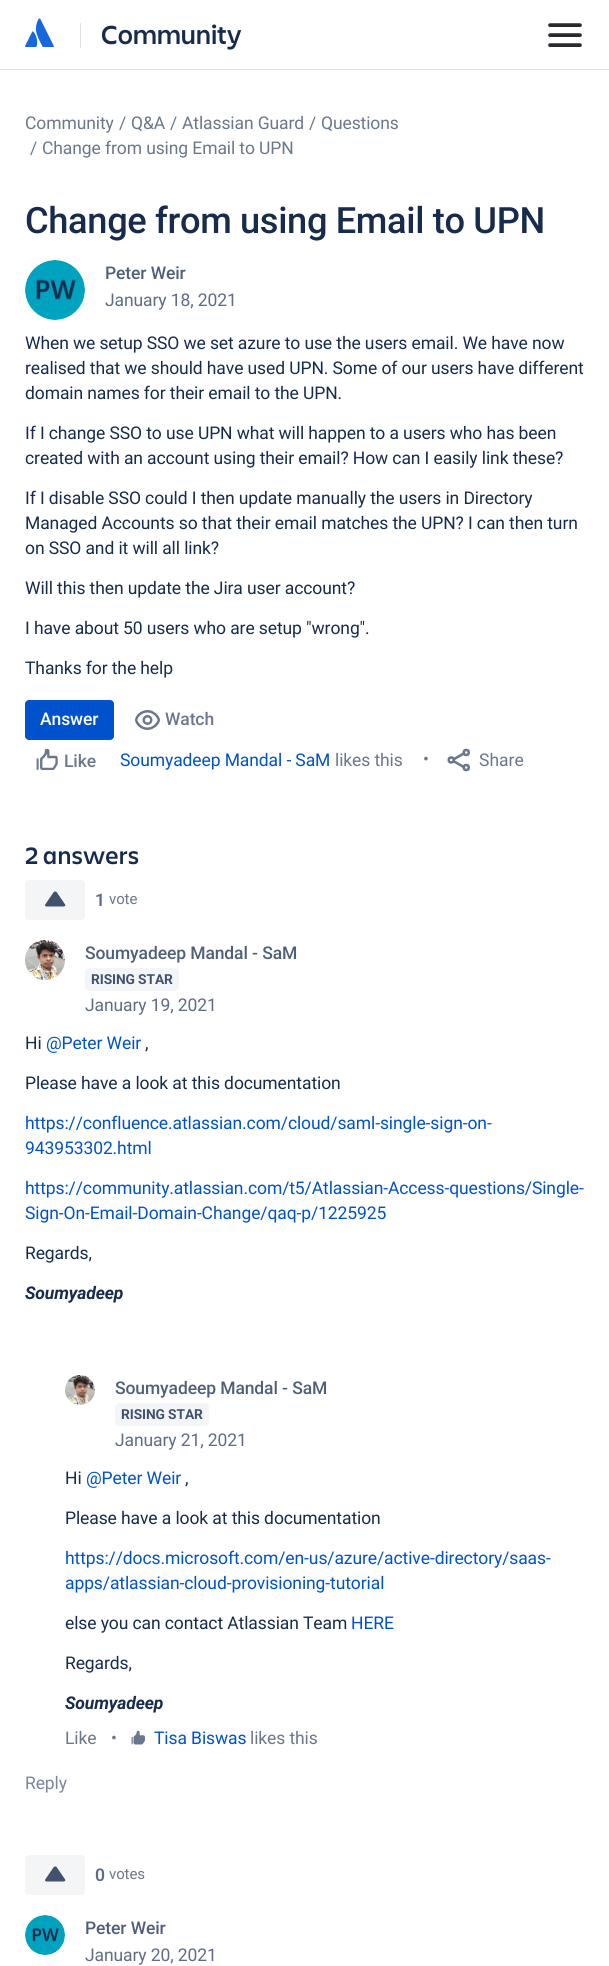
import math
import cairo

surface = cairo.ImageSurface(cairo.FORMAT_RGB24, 609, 1966)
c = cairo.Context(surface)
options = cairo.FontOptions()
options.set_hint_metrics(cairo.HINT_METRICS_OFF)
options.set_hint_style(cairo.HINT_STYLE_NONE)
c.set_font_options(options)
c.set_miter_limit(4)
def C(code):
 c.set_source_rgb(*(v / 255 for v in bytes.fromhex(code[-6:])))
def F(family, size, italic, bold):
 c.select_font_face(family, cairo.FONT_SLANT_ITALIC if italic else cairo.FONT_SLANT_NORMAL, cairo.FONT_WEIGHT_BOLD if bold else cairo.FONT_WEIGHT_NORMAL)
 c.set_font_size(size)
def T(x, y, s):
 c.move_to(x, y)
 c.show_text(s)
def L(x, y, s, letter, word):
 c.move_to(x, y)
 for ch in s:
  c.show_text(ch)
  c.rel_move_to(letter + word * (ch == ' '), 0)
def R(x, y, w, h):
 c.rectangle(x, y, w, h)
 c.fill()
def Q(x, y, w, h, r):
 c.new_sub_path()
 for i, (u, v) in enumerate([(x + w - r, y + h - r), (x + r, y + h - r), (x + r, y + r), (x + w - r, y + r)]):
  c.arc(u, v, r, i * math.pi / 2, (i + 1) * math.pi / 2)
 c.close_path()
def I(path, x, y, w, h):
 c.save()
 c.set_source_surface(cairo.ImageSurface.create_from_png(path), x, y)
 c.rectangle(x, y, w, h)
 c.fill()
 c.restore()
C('ffffff')
c.paint()
C('dfe1e6')
R(0,69,609,1)
I('1.png',25,18,29,29)
R(80,23,1,25)
F('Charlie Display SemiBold',27.5,0,0)
C('172b4d')
L(101,44,'Community',-.1,0)
I('2.png',548,23,34,24)
F('Roboto',17.5,0,0)
C('6b778c')
L(25,129,'Community',-.1,0)
L(119,129,'/',-.1,0)
L(131,129,'Q&A',-.1,0)
L(170,129,'/',-.1,0)
L(182,129,'Atlassian Guard',-.1,0)
L(309,129,'/',-.1,0)
L(321,129,'Questions',-.1,0)
L(30,154,'/',-.1,0)
L(42,154,'Change from using Email to UPN',-.1,0)
F('Roboto Medium',36.25,0,0)
C('172b4d')
L(25,233,'Change from using Email to UPN',-.35,0)
I('3.png',25,260,60,60)
F('Roboto Medium',17.5,0,0)
C('505f79')
L(105,279,'Peter Weir',-.1,0)
F('Roboto',17.5,0,0)
C('5e6c84')
L(105,306,'January 18, 2021',-.1,0)
C('172b4d')
L(25,349,'When we setup SSO we set azure to use the users email. We have now',-.1,0)
L(25,374,'realised that we should have used UPN. Some of our users have different',-.1,0)
L(25,399,'domain names for their email to the UPN.',-.1,0)
L(25,439,'If I change SSO to use UPN what will happen to a users who has been',-.1,0)
L(25,464,'created with an account using their email? How can I easily link these?',-.1,0)
L(25,504,'If I disable SSO could I then update manually the users in Directory',-.1,0)
L(25,529,'Managed Accounts so that their email matches the UPN? I can then turn',-.1,0)
L(25,554,'on SSO and it will all link?',-.1,0)
L(25,594,'Will this then update the Jira user account?',-.1,0)
L(25,634,'I have about 50 users who are setup "wrong".',-.1,0)
L(25,674,'Thanks for the help',-.1,0)
C('0052cc')
Q(25,700,89,40,4)
c.fill()
F('Roboto Medium',17.5,0,0)
C('ffffff')
L(40,725,'Answer',-.1,0)
I('4.png',135,710,25,20)
C('6b778c')
L(165,725,'Watch',-.1,0)
I('5.png',36,748,22,22)
L(64,767,'Like',-.1,0)
F('Roboto',17.5,0,0)
C('0052cc')
L(120,766,'Soumyadeep Mandal - SaM',-.1,0)
C('6b778c')
L(335,766,'likes this',-.1,0)
L(423,765,'•',-.1,0)
I('6.png',447,748,23,24)
T(479,766,'Share')
F('Charlie Display SemiBold',25,0,0)
C('172b4d')
L(25,864,'2 answers',.4,0)
C('f4f5f7')
Q(25,880,60,40,4)
c.fill()
I('7.png',45,891,21,16)
F('Roboto SemiBold',17.5,0,0)
C('5e6c84')
L(95,906,'1',-.1,0)
F('Roboto',15,0,0)
C('6b778c')
L(109,904,'vote',-.1,0)
I('8.png',25,940,40,40)
F('Roboto Medium',17.5,0,0)
C('505f79')
L(85,959,'Soumyadeep Mandal - SaM',-.1,0)
C('f4f5f7')
Q(85,968,94,23,4)
c.fill()
F('Roboto',13.75,0,1)
C('42526e')
L(91,984,'RISING STAR',-.1,0)
F('Roboto',17.5,0,0)
C('5e6c84')
L(85,1011,'January 19, 2021',-.1,0)
C('172b4d')
L(25,1049,'Hi',-.1,0)
C('0052cc')
L(46,1049,'@Peter Weir',-.1,0)
C('172b4d')
L(145,1049,',',-.1,0)
L(25,1089,'Please have a look at this documentation',-.1,0)
C('0052cc')
L(25,1129,'https://confluence.atlassian.com/cloud/saml-single-sign-on-',-.1,0)
L(25,1154,'943953302.html',-.1,0)
L(25,1194,'https://community.atlassian.com/t5/Atlassian-Access-questions/Single-',-.1,0)
L(25,1219,'Sign-On-Email-Domain-Change/qaq-p/1225925',-.1,0)
C('172b4d')
L(25,1259,'Regards,',-.1,0)
F('Roboto',17.5,1,1)
L(25,1299,'Soumyadeep',-.1,0)
I('9.png',65,1375,30,30)
F('Roboto Medium',17.5,0,0)
C('505f79')
L(115,1394,'Soumyadeep Mandal - SaM',-.1,0)
C('f4f5f7')
Q(115,1403,94,23,4)
c.fill()
F('Roboto',13.75,0,1)
C('42526e')
L(121,1419,'RISING STAR',-.1,0)
F('Roboto',17.5,0,0)
C('5e6c84')
L(115,1446,'January 21, 2021',-.1,0)
C('172b4d')
L(65,1484,'Hi',-.1,0)
C('0052cc')
L(86,1484,'@Peter Weir',-.1,0)
C('172b4d')
L(185,1484,',',-.1,0)
L(65,1524,'Please have a look at this documentation',-.1,0)
C('0052cc')
L(65,1564,'https://docs.microsoft.com/en-us/azure/active-directory/saas-',-.1,0)
L(65,1589,'apps/atlassian-cloud-provisioning-tutorial',-.1,0)
C('172b4d')
L(65,1629,'else you can contact Atlassian Team',-.1,0)
C('0052cc')
L(351,1629,'HERE',-.1,0)
C('172b4d')
L(65,1669,'Regards,',-.1,0)
F('Roboto',17.5,1,1)
L(65,1709,'Soumyadeep',-.1,0)
F('Roboto',17.5,0,0)
C('6b778c')
L(65,1744,'Like',-.1,0)
L(111,1744,'•',-.1,0)
I('10.png',131,1730,14,15)
C('0052cc')
L(154,1744,'Tisa Biswas',-.1,0)
C('6b778c')
L(250,1744,'likes this',-.1,0)
C('7a869a')
L(25,1789,'Reply',-.1,0)
C('f4f5f7')
Q(25,1855,60,40,4)
c.fill()
I('7.png',45,1866,21,16)
F('Roboto SemiBold',17.5,0,0)
C('5e6c84')
L(95,1881,'0',-.1,0)
F('Roboto',15,0,0)
C('6b778c')
L(109,1879,'votes',-.1,0)
I('11.png',25,1915,40,40)
F('Roboto Medium',17.5,0,0)
C('505f79')
L(85,1934,'Peter Weir',-.1,0)
F('Roboto',17.5,0,0)
C('5e6c84')
L(85,1961,'January 20, 2021',-.1,0)
surface.write_to_png('o.png')
